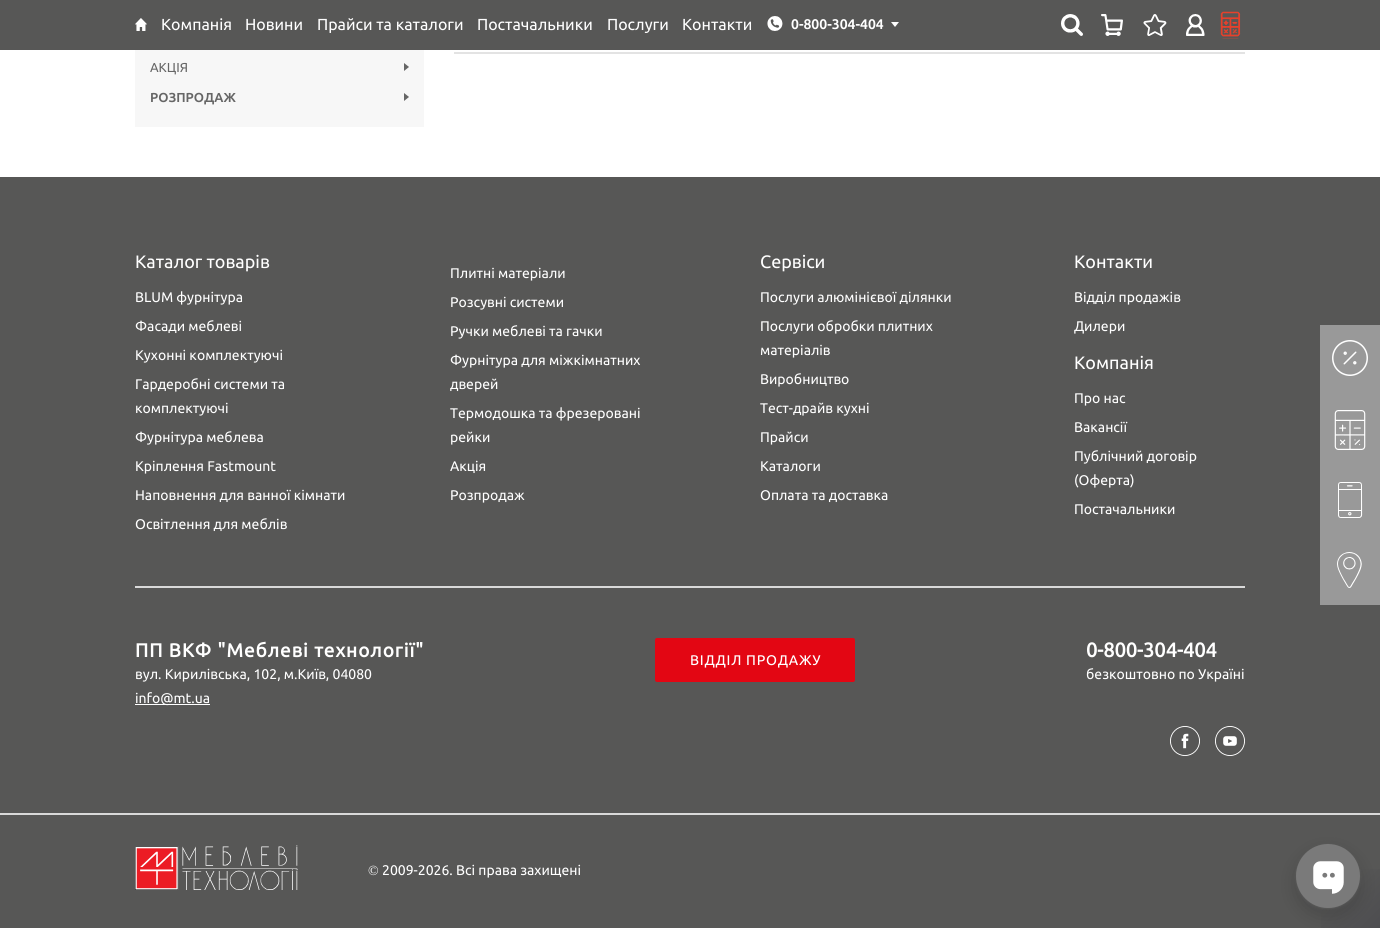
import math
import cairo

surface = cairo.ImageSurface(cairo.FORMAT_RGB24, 1380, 928)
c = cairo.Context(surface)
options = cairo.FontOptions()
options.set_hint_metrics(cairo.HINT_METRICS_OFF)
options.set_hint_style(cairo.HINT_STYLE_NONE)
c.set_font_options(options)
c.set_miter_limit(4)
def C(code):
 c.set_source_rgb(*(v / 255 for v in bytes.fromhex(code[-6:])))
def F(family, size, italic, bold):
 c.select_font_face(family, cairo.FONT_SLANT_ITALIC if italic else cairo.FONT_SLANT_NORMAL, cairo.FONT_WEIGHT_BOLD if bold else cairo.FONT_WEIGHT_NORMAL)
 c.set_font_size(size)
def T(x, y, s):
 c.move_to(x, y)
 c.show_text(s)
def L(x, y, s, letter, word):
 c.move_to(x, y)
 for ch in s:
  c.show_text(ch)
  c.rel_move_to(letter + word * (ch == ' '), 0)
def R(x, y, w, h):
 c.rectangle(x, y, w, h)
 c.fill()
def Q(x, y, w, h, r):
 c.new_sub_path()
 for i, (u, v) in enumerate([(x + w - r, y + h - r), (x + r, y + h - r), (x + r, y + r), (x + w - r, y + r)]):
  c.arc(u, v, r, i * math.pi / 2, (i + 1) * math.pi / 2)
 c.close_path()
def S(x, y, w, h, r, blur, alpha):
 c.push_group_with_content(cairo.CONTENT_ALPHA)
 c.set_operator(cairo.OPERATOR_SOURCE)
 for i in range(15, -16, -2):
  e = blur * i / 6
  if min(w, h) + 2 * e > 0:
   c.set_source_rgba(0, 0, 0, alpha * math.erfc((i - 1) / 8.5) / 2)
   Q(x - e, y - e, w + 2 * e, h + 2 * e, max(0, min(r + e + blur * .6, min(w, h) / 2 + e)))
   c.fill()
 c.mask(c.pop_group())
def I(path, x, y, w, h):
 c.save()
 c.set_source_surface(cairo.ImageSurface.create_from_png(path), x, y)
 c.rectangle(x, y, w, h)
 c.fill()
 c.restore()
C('ffffff')
c.paint()
C('575756')
R(0,0,1380,50)
I('1.png',135,18,12,13)
F('Ubuntu',16,0,0)
C('ffffff')
T(161,30,'Компанія')
T(245,30,'Новини')
T(317,30,'Прайси та каталоги')
T(477,30,'Постачальники')
T(607,30,'Послуги')
T(682,30,'Контакти')
I('2.png',767,16,16,15)
F('Ubuntu',14,0,1)
T(791,29,'0-800-304-404')
c.new_path()
c.move_to(891,22)
c.line_to(899,22)
c.line_to(895,27)
c.close_path()
c.fill()
I('3.png',1061,14,22,22)
I('4.png',1101,14,22,22)
I('5.png',1143,14,24,22)
I('6.png',1186,14,19,22)
I('7.png',1220,11,21,28)
C('e3e3e3')
R(454,52,791,2)
C('f7f7f7')
R(135,50,289,77)
F('Ubuntu',13,0,0)
C('666666')
T(150,72,'АКЦІЯ')
c.new_path()
c.move_to(404,71)
c.line_to(404,63)
c.line_to(409,67)
c.close_path()
c.fill()
F('Ubuntu',13,0,1)
T(150,102,'РОЗПРОДАЖ')
c.new_path()
c.move_to(404,101)
c.line_to(404,93)
c.line_to(409,97)
c.close_path()
c.fill()
C('575756')
R(0,177,1380,751)
C('d9d9d9')
R(135,586,1110,2)
F('Ubuntu',18,0,0)
C('ffffff')
T(135,268,'Каталог товарів')
F('Ubuntu',14,0,0)
T(135,302,'BLUM фурнітура')
T(135,331,'Фасади меблеві')
T(135,360,'Кухонні комплектуючі')
T(135,389,'Гардеробні системи та')
T(135,413,'комплектуючі')
T(135,442,'Фурнітура меблева')
T(135,471,'Кріплення Fastmount')
T(135,500,'Наповнення для ванної кімнати')
T(135,529,'Освітлення для меблів')
T(450,278,'Плитні матеріали')
T(450,307,'Розсувні системи')
T(450,336,'Ручки меблеві та гачки')
T(450,365,'Фурнітура для міжкімнатних')
T(450,389,'дверей')
T(450,418,'Термодошка та фрезеровані')
T(450,442,'рейки')
T(450,471,'Акція')
T(450,500,'Розпродаж')
F('Ubuntu',18,0,0)
T(760,268,'Сервіси')
F('Ubuntu',14,0,0)
T(760,302,'Послуги алюмінієвої ділянки')
T(760,331,'Послуги обробки плитних')
T(760,355,'матеріалів')
T(760,384,'Виробництво')
T(760,413,'Тест-драйв кухні')
T(760,442,'Прайси')
T(760,471,'Каталоги')
T(760,500,'Оплата та доставка')
F('Ubuntu',18,0,0)
T(1074,268,'Контакти')
F('Ubuntu',14,0,0)
T(1074,302,'Відділ продажів')
T(1074,331,'Дилери')
F('Ubuntu',18,0,0)
T(1074,369,'Компанія')
F('Ubuntu',14,0,0)
T(1074,403,'Про нас')
T(1074,432,'Вакансії')
T(1074,461,'Публічний договір')
T(1074,485,'(Оферта)')
T(1074,514,'Постачальники')
F('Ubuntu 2',19,0,1)
L(135,657,'ПП ВКФ "Меблеві технології"',.95,0)
F('Ubuntu',14,0,0)
T(135,679,'вул. Кирилівська, 102, м.Київ, 04080')
R(135,704,75,1)
T(135,703,'info@mt.ua')
C('e30613')
Q(655,638,200,44,2)
c.fill()
F('Ubuntu Medium',14,0,0)
C('ffffff')
L(690,665,'ВІДДІЛ ПРОДАЖУ',.75,0)
F('Ubuntu 2',20,0,1)
T(1086,657,'0-800-304-404')
F('Ubuntu',14,0,0)
T(1086,679,'безкоштовно по Україні')
I('8.png',1170,726,30,30)
I('9.png',1215,726,30,30)
C('d9d9d9')
R(0,813,1380,2)
I('10.png',135,845,163,45)
F('Liberation Serif',14,0,0)
C('ffffff')
T(368,875,'©')
F('Ubuntu',14,0,0)
T(382,875,'2009-2026. Всі права захищені')
C('999999')
R(1320,325,60,280)
I('11.png',1332,340,36,36)
I('12.png',1334,410,32,40)
I('13.png',1338,482,25,36)
I('14.png',1337,552,25,36)
gradient = cairo.LinearGradient(1280,828,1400,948)
gradient.add_color_stop_rgba(.5,0.341,0.341,0.337,1)
gradient.add_color_stop_rgba(1,0.282,0.282,0.302,1)
c.set_source(gradient)
R(1321,869,59,59)
C('000000')
S(1296,852,64,64,32,10,.16)
C('7a7a7a')
S(1298,847,60,60,30,2,1)
C('7a7a7a')
c.arc(1328,876,32,0,2 * math.pi)
c.fill()
I('15.png',1313,861,31,33)
surface.write_to_png('o.png')
